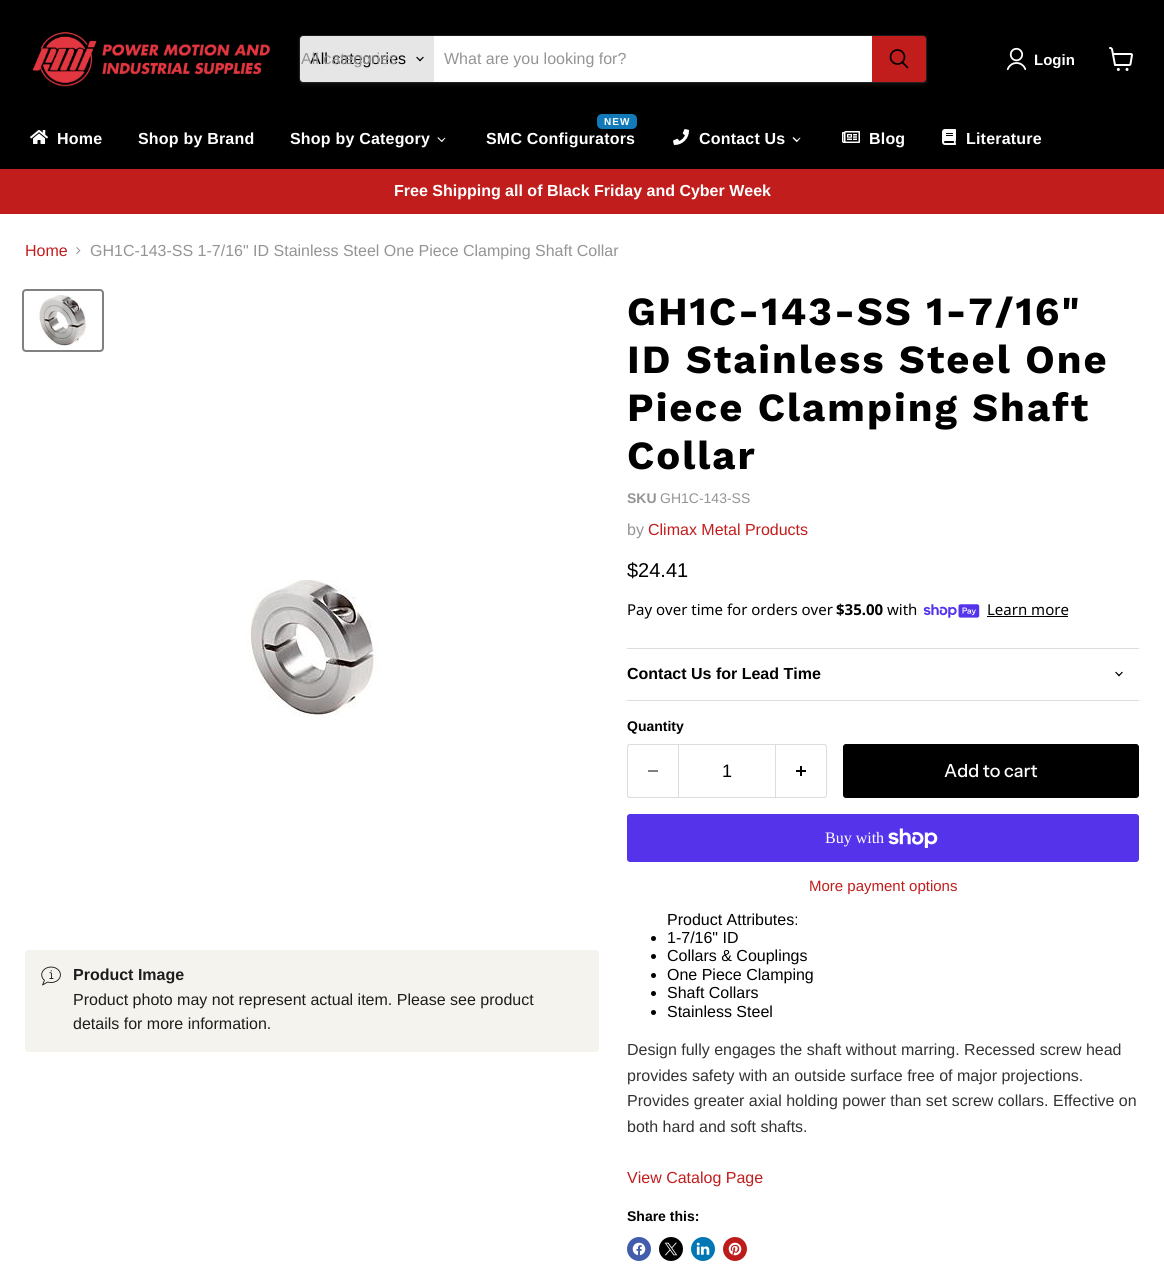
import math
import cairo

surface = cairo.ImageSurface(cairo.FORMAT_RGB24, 1164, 1264)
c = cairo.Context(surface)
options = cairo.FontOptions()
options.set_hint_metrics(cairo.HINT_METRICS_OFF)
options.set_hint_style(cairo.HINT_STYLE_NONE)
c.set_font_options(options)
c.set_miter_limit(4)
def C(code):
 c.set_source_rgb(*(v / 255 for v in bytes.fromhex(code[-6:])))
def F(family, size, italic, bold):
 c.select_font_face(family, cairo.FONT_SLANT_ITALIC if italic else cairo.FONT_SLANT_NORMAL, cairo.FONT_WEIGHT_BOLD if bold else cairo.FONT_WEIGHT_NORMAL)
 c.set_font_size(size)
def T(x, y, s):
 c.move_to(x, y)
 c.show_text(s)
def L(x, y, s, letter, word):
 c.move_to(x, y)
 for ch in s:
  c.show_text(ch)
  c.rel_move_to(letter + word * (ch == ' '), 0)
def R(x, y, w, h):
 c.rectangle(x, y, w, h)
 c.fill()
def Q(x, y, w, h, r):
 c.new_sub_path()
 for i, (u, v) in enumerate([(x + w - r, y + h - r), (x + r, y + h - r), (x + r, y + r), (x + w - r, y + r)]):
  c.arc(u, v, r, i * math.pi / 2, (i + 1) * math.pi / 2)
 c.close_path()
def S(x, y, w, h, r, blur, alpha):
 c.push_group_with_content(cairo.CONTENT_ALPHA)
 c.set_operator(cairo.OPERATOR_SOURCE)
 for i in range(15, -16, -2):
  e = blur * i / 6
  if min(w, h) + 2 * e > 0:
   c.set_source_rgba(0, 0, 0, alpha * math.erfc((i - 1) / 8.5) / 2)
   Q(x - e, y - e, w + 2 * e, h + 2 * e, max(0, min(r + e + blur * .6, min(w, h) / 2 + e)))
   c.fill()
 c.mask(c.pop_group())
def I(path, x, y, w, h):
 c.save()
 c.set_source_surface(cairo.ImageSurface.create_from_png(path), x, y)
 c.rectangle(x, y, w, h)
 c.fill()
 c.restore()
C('ffffff')
c.paint()
C('000000')
R(0,0,1164,169)
I('1.png',32,31,239,56)
C('808080')
S(299,37,628,48,4,1.5,.11)
Q(299.5,35.5,627,47,3.5)
c.set_source_rgba(0.502,0.502,0.502,0.2)
c.set_line_width(1)
c.stroke()
C('e6e6e6')
c.new_path()
c.move_to(303,36)
c.line_to(434,36)
c.line_to(434,82)
c.line_to(303,82)
c.curve_to(301.5,82,300,80.5,300,79)
c.line_to(300,39)
c.curve_to(300,37.5,301.5,36,303,36)
c.close_path()
c.fill()
F('Liberation Sans',16,0,0)
C('000000')
T(310,64,'All categories')
C('949494')
T(301,64,'All categories')
I('2.png',416,56,8,6)
C('ffffff')
R(434,36,438,46)
C('949494')
T(444,64,'What are you looking for?')
C('c11d1c')
c.new_path()
c.move_to(872.5,36.5)
c.line_to(923,36.5)
c.curve_to(924.5,36.5,925.5,37.5,925.5,39)
c.line_to(925.5,79)
c.curve_to(925.5,80.5,924.5,81.5,923,81.5)
c.line_to(872.5,81.5)
c.close_path()
c.fill_preserve()
c.stroke()
c.new_path()
c.move_to(907.5,67.5)
c.line_to(902.5,62.5)
C('000000')
c.set_line_width(1.7)
c.set_line_cap(cairo.LINE_CAP_ROUND)
c.stroke()
c.arc(897.5,57,7,0,2 * math.pi)
c.set_line_cap(cairo.LINE_CAP_BUTT)
c.stroke()
I('3.png',1006,47,20,24)
F('Liberation Sans',15,0,1)
C('ffffff')
T(1034,65,'Login')
I('4.png',1109,47,24,24)
I('5.png',30,130,18,14)
F('Liberation Sans',16,0,1)
L(57,144,'Home',.2,0)
L(138,144,'Shop by Brand',.2,0)
L(290,144,'Shop by Category',.2,0)
c.new_path()
c.move_to(445,137.5)
c.line_to(445.5,138)
c.line_to(442,142)
c.line_to(441,141)
c.close_path()
c.fill()
c.new_path()
c.move_to(438,137)
c.line_to(442,141)
c.line_to(441.5,142)
c.line_to(437.5,138)
c.close_path()
c.fill()
C('127ab8')
Q(597,114,40,15,5)
c.fill()
F('Liberation Sans',10,0,1)
C('ffffff')
L(604,125,'NEW',1,0)
F('Liberation Sans',16,0,1)
L(486,144,'SMC Configurators',.2,0)
I('6.png',673,129,16,16)
L(699,144,'Contact Us',.2,0)
c.new_path()
c.move_to(800,137.5)
c.line_to(800.5,138)
c.line_to(797,142)
c.line_to(796,141)
c.close_path()
c.fill()
c.new_path()
c.move_to(793.5,137)
c.line_to(797.5,141)
c.line_to(796.5,142)
c.line_to(792.5,138)
c.close_path()
c.fill()
I('7.png',842,131,18,12)
L(869,144,'Blog',.2,0)
I('8.png',942,129,14,16)
L(966,144,'Literature',.2,0)
C('c11d1c')
R(0,169,1164,45)
C('ffffff')
T(394,196,'Free Shipping all of Black Friday and Cyber Week')
F('Liberation Sans',16,0,0)
C('c11d1c')
T(25,256,'Home')
I('9.png',76,247,5,8)
C('949494')
T(90,256,'GH1C-143-SS 1-7/16" ID Stainless Steel One Piece Clamping Shaft Collar')
Q(23,290,80,61,3)
C('818181')
c.set_line_width(2)
c.stroke()
I('10.png',37,295,51,51)
I('11.png',245,580,135,136)
C('f5f3ed')
Q(25,950,574,102,3)
c.fill()
I('12.png',41,966,20,20)
F('Liberation Sans',16,0,1)
C('1d1d1d')
T(73,980,'Product Image')
F('Liberation Sans',16,0,0)
T(73,1005,'Product photo may not represent actual item. Please see product')
T(73,1029,'details for more information.')
F('Work Sans',40,0,1)
C('000000')
L(627,325,'GH1C-143-SS 1-7/16"',2,0)
L(627,373,'ID Stainless Steel One',2,0)
L(627,421,'Piece Clamping Shaft',2,0)
L(627,469,'Collar',2,0)
F('Liberation Sans',14,0,1)
C('949494')
T(627,503,'SKU')
F('Liberation Sans',14,0,0)
T(660,503,'GH1C-143-SS')
F('Liberation Sans',16,0,0)
T(627,535,'by')
C('c11d1c')
T(648,535,'Climax Metal Products')
F('Liberation Sans',20,0,0)
C('000000')
T(627,577,'$24.41')
F('Noto Sans',15,0,0)
T(627,615,'Pay over time for orders over')
F('Noto Sans',15,0,1)
T(836,615,'$35.00')
F('Noto Sans',15,0,0)
T(887,615,'with')
I('13.png',923,604,57,14)
T(987,615,'Learn more')
R(987,616,81,1)
C('dddddd')
R(627,648,512,1)
R(627,700,512,1)
F('Liberation Sans',16,0,1)
C('000000')
T(627,679,'Contact Us for Lead Time')
I('14.png',1115,671,8,6)
F('Liberation Sans',14,0,1)
T(627,731,'Quantity')
C('dddddd')
c.set_fill_rule(cairo.FILL_RULE_EVEN_ODD)
c.new_path()
c.move_to(630,744)
c.line_to(678,744)
c.line_to(678,798)
c.line_to(630,798)
c.curve_to(628,798,627,797,627,795)
c.line_to(627,747)
c.curve_to(627,745,628,744,630,744)
c.close_path()
c.move_to(630,745)
c.line_to(678,745)
c.line_to(678,797)
c.line_to(630,797)
c.curve_to(629,797,628,796,628,795)
c.line_to(628,747)
c.curve_to(628,746,629,745,630,745)
c.close_path()
c.fill()
C('808080')
R(648,770,10,2)
c.rectangle(678.5,744.5,97,53)
C('dddddd')
c.set_line_width(1)
c.stroke()
F('Liberation Sans',18,0,0)
C('000000')
T(722,777,'1')
C('dddddd')
c.new_path()
c.move_to(776,744)
c.line_to(824,744)
c.curve_to(826,744,827,745,827,747)
c.line_to(827,795)
c.curve_to(827,797,826,798,824,798)
c.line_to(776,798)
c.close_path()
c.move_to(776,745)
c.line_to(824,745)
c.curve_to(825,745,826,746,826,747)
c.line_to(826,795)
c.curve_to(826,796,825,797,824,797)
c.line_to(776,797)
c.close_path()
c.fill()
I('15.png',796,766,10,10)
C('000000')
Q(843.5,744.5,295,53,2.5)
c.fill_preserve()
c.stroke()
F('Instrument Sans Medium',18,0,0)
C('ffffff')
T(944,777,'Add to cart')
C('5433eb')
Q(627,814,512,48,3)
c.fill()
F('Liberation Serif',16,0,0)
C('ffffff')
T(825,843,'Buy with')
I('16.png',888,828,50,20)
F('Liberation Sans',15,0,0)
C('c11d1c')
T(809,891,'More payment options')
F('Liberation Sans',16,0,0)
C('000000')
T(667,925,'Product Attributes:')
c.new_path()
c.arc(653.5,938.5,2.5,0,2 * math.pi)
c.fill()
T(667,943,'1-7/16" ID')
c.new_path()
c.arc(653.5,956.5,2.5,0,2 * math.pi)
c.fill()
T(667,961,'Collars & Couplings')
c.new_path()
c.arc(653.5,975.5,2.5,0,2 * math.pi)
c.fill()
T(667,980,'One Piece Clamping')
c.new_path()
c.arc(653.5,993.5,2.5,0,2 * math.pi)
c.fill()
T(667,998,'Shaft Collars')
c.new_path()
c.arc(653.5,1012.5,2.5,0,2 * math.pi)
c.fill()
T(667,1017,'Stainless Steel')
C('333333')
T(627,1055,'Design fully engages the shaft without marring. Recessed screw head')
T(627,1081,'provides safety with an outside surface free of major projections.')
T(627,1106,'Provides greater axial holding power than set screw collars. Effective on')
T(627,1132,'both hard and soft shafts.')
C('c11d1c')
T(627,1183,'View Catalog Page')
F('Liberation Sans',14,0,1)
C('000000')
T(627,1221,'Share this:')
C('425dab')
c.new_path()
c.arc(639,1249,12,0,2 * math.pi)
c.fill()
I('17.png',632,1242,14,14)
C('000000')
c.arc(671,1249,12,0,2 * math.pi)
c.fill()
I('18.png',664,1242,14,14)
C('0077b5')
c.arc(703,1249,12,0,2 * math.pi)
c.fill()
I('19.png',696,1242,14,13)
C('bd1c1c')
c.arc(735,1249,12,0,2 * math.pi)
c.fill()
I('20.png',728,1242,14,14)
surface.write_to_png('o.png')
